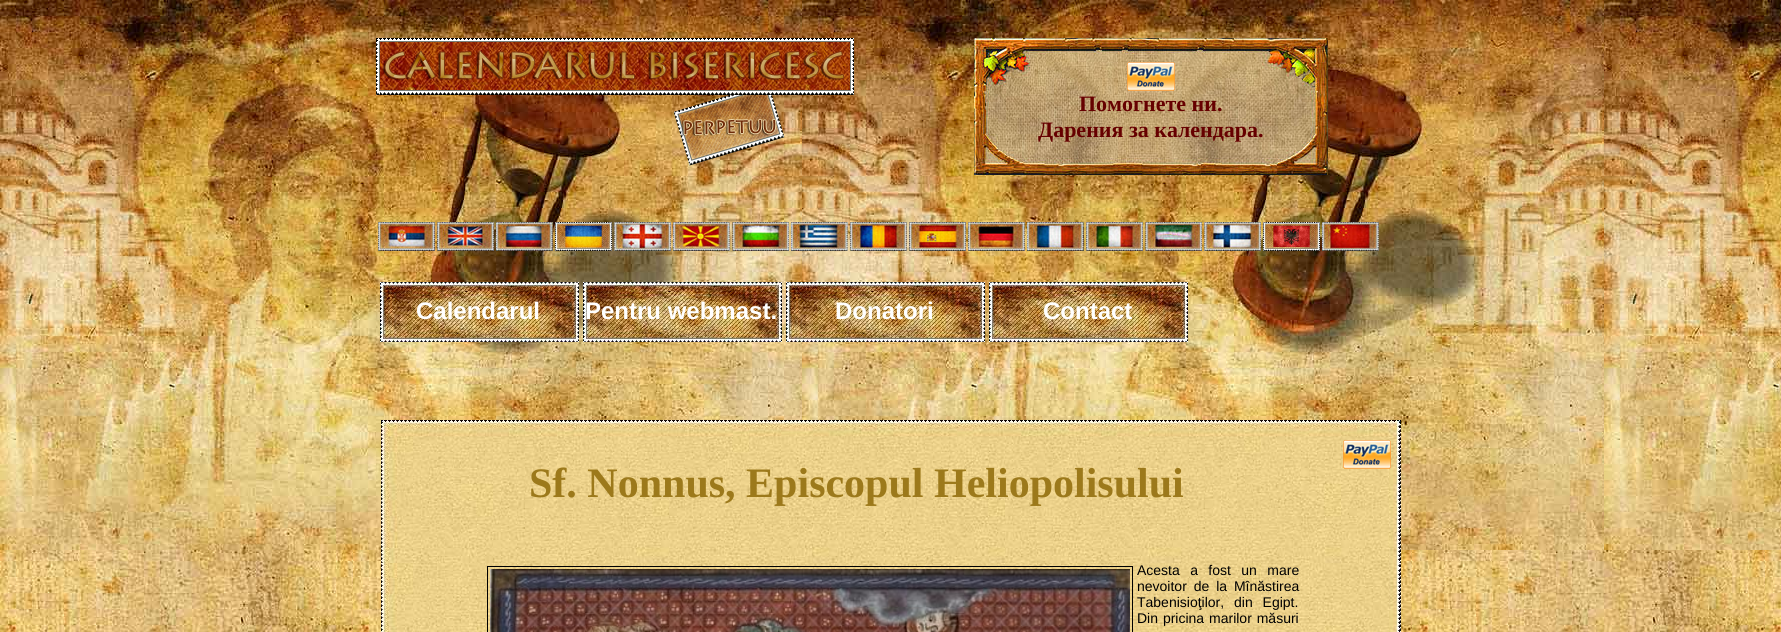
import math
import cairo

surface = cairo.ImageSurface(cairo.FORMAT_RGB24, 1781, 632)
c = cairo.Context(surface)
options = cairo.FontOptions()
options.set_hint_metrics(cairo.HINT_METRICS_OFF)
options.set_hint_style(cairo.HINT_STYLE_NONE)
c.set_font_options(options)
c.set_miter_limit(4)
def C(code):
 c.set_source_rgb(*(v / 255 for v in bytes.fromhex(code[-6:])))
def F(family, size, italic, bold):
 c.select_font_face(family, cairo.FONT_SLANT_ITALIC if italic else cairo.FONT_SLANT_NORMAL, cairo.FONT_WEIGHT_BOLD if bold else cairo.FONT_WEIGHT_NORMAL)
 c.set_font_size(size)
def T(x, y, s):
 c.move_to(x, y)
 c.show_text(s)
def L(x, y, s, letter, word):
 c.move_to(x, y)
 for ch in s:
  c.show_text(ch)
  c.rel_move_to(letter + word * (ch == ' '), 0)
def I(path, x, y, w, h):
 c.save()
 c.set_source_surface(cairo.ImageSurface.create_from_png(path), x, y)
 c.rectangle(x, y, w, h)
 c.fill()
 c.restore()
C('ffffff')
c.paint()
I('1.png',0,550,1781,82)
I('2.png',0,0,1781,550)
I('3.png',376,38,478,128)
I('4.png',974,38,354,137)
I('5.png',1127,62,48,29)
F('Liberation Serif',22,0,1)
C('660000')
T(1079,111,'Помогнете ни.')
T(1038,137,'Дарения за календара.')
I('6.png',378,222,57,29)
I('7.png',437,222,57,29)
I('8.png',496,222,57,29)
I('9.png',555,222,57,29)
I('10.png',614,222,57,29)
I('11.png',673,222,57,29)
I('12.png',732,222,57,29)
I('13.png',791,222,57,29)
I('14.png',850,222,57,29)
I('15.png',909,222,57,29)
I('16.png',968,222,57,29)
I('17.png',1027,222,57,29)
I('18.png',1086,222,57,29)
I('19.png',1145,222,57,29)
I('20.png',1204,222,57,29)
I('21.png',1263,222,57,29)
I('22.png',1322,222,57,29)
I('23.png',380,282,199,60)
F('Liberation Sans',24,0,1)
C('ffffff')
T(416,319,'Calendarul')
I('23.png',583,282,199,60)
T(585,319,'Pentru webmast.')
I('23.png',786,282,199,60)
T(835,319,'Donatori')
I('23.png',989,282,199,60)
T(1043,319,'Contact')
I('24.png',381,420,1020,143)
I('25.png',1343,440,48,29)
F('Liberation Serif',42,0,1)
C('9c791b')
T(529,497,'Sf. Nonnus, Episcopul Heliopolisului')
I('26.png',381,563,1020,69)
c.rectangle(487.5,566.5,645,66)
C('000000')
c.set_line_width(1)
c.stroke()
I('27.png',490,569,640,63)
F('Liberation Sans',14,0,0)
L(1137,575,'Acesta a fost un mare',0,6.5)
L(1137,591,'nevoitor de la Mînăstirea',0,3)
L(1137,607,'Tabenisioţilor, din Egipt.',0,6)
L(1137,623,'Din pricina marilor măsuri',0,1)
surface.write_to_png('o.png')
